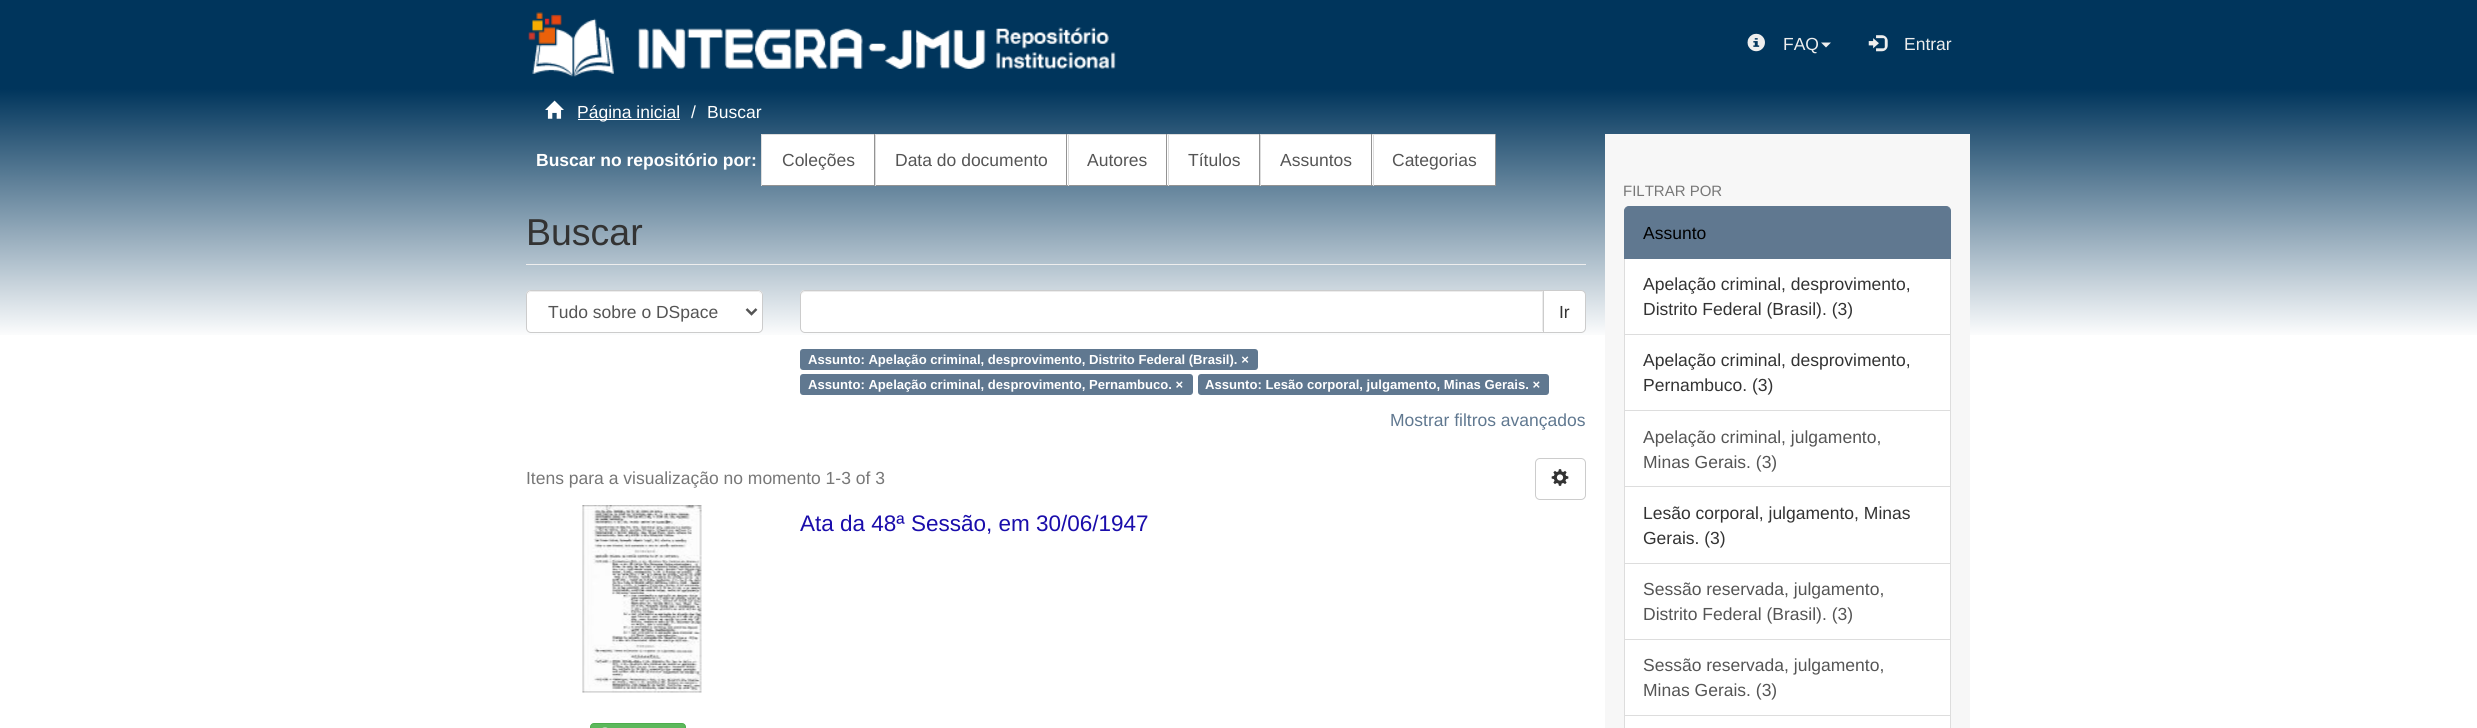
import math
import cairo

surface = cairo.ImageSurface(cairo.FORMAT_RGB24, 2477, 728)
c = cairo.Context(surface)
options = cairo.FontOptions()
options.set_hint_metrics(cairo.HINT_METRICS_OFF)
options.set_hint_style(cairo.HINT_STYLE_NONE)
c.set_font_options(options)
c.set_miter_limit(4)
def C(code):
 c.set_source_rgb(*(v / 255 for v in bytes.fromhex(code[-6:])))
def F(family, size, italic, bold):
 c.select_font_face(family, cairo.FONT_SLANT_ITALIC if italic else cairo.FONT_SLANT_NORMAL, cairo.FONT_WEIGHT_BOLD if bold else cairo.FONT_WEIGHT_NORMAL)
 c.set_font_size(size)
def T(x, y, s):
 c.move_to(x, y)
 c.show_text(s)
def R(x, y, w, h):
 c.rectangle(x, y, w, h)
 c.fill()
def Q(x, y, w, h, r):
 c.new_sub_path()
 for i, (u, v) in enumerate([(x + w - r, y + h - r), (x + r, y + h - r), (x + r, y + r), (x + w - r, y + r)]):
  c.arc(u, v, r, i * math.pi / 2, (i + 1) * math.pi / 2)
 c.close_path()
def I(path, x, y, w, h):
 c.save()
 c.set_source_surface(cairo.ImageSurface.create_from_png(path), x, y)
 c.rectangle(x, y, w, h)
 c.fill()
 c.restore()
C('ffffff')
c.paint()
C('00355c')
R(0,0,2477,89)
I('1.png',528,12,86,65)
I('2.png',638,27,478,42)
I('3.png',1747,33,18,19)
F('Liberation Sans',17.5,0,0)
C('eeeeee')
T(1783,50,'FAQ')
c.new_path()
c.move_to(1821,42.5)
c.line_to(1831,42.5)
c.line_to(1826,47.5)
c.close_path()
c.fill()
I('4.png',1868,35,20,17)
T(1904,50,'Entrar')
I('5.png',0,89,2477,246)
I('6.png',545,100,19,19)
C('ffffff')
R(578,119,102,1)
T(577,118,'Página inicial')
T(691,118,'/')
T(707,118,'Buscar')
F('Liberation Sans',17.5,0,1)
T(536,166,'Buscar no repositório por:')
R(762,135,112,50)
C('dddddd')
R(761,134,735,1)
C('939393')
R(874,134,1,52)
R(761,185,114,1)
C('dddddd')
R(761,134,1,52)
F('Liberation Sans',17.5,0,0)
C('555555')
T(782,166,'Coleções')
C('ffffff')
R(876,135,192,50)
C('939393')
R(1066,134,1,52)
R(875,185,193,1)
C('dddddd')
R(875,134,1,52)
C('555555')
T(895,166,'Data do documento')
C('ffffff')
R(1069,135,99,50)
C('939393')
R(1166,134,1,52)
R(1068,185,100,1)
C('dddddd')
R(1068,134,1,52)
C('555555')
T(1087,166,'Autores')
C('ffffff')
R(1169,135,90,50)
C('939393')
R(1259,134,1,52)
R(1168,185,92,1)
C('dddddd')
R(1168,134,1,52)
C('555555')
T(1188,166,'Títulos')
C('ffffff')
R(1261,135,112,50)
C('939393')
R(1371,134,1,52)
R(1260,185,113,1)
C('dddddd')
R(1260,134,1,52)
C('555555')
T(1280,166,'Assuntos')
C('ffffff')
R(1374,135,121,50)
C('939393')
R(1495,134,1,52)
R(1373,185,123,1)
C('dddddd')
R(1373,134,1,52)
C('555555')
T(1392,166,'Categorias')
C('eeeeee')
R(526,264,1060,1)
F('Liberation Sans',37.5,0,0)
C('333333')
T(526,245,'Buscar')
C('ffffff')
Q(526,290,237,43,5)
c.fill()
C('ececec')
c.new_path()
c.move_to(531,292)
c.line_to(758,292)
c.curve_to(760,292,761,294,761,296)
c.curve_to(761,293,760,291,757,291)
c.line_to(532,291)
c.curve_to(529,291,528,293,528,296)
c.curve_to(528,294,529,292,531,292)
c.close_path()
c.fill()
Q(526.5,290.5,236,42,4.5)
C('cccccc')
c.set_line_width(1)
c.stroke()
c.new_path()
c.move_to(746.5,309)
c.line_to(751.5,314)
c.line_to(756.5,309)
C('555555')
c.set_line_width(2.5)
c.stroke()
F('Liberation Sans',17.5,0,0)
T(548,318,'Tudo sobre o DSpace')
C('ffffff')
c.new_path()
c.move_to(1543.5,290.5)
c.line_to(1581,290.5)
c.curve_to(1583.5,290.5,1585.5,292.5,1585.5,295)
c.line_to(1585.5,328)
c.curve_to(1585.5,330.5,1583.5,332.5,1581,332.5)
c.line_to(1543.5,332.5)
c.close_path()
c.fill_preserve()
C('cccccc')
c.set_line_width(1)
c.stroke()
C('ffffff')
c.new_path()
c.move_to(805,290)
c.line_to(1544,290)
c.line_to(1544,333)
c.line_to(805,333)
c.curve_to(802,333,800,331,800,328)
c.line_to(800,295)
c.curve_to(800,292,802,290,805,290)
c.close_path()
c.fill()
C('ececec')
c.new_path()
c.move_to(805,292)
c.line_to(1542,292)
c.line_to(1542,331)
c.line_to(1543,331)
c.line_to(1543,291)
c.line_to(805,291)
c.curve_to(803,291,801,293,801,295)
c.line_to(801,296)
c.curve_to(801,294,803,292,805,292)
c.close_path()
c.fill()
c.new_path()
c.move_to(805,290.5)
c.line_to(1543.5,290.5)
c.line_to(1543.5,332.5)
c.line_to(805,332.5)
c.curve_to(802.5,332.5,800.5,330.5,800.5,328)
c.line_to(800.5,295)
c.curve_to(800.5,292.5,802.5,290.5,805,290.5)
c.close_path()
C('cccccc')
c.stroke()
C('333333')
T(1559,318,'Ir')
C('607890')
Q(800,349,458,21,3)
c.fill()
F('Liberation Sans',13.1,0,1)
C('ffffff')
T(808,364,'Assunto: Apelação criminal, desprovimento, Distrito Federal (Brasil). ×')
C('607890')
Q(800,374,393,21,3)
c.fill()
C('ffffff')
T(808,389,'Assunto: Apelação criminal, desprovimento, Pernambuco. ×')
C('607890')
Q(1198,374,351,21,3)
c.fill()
C('ffffff')
T(1205,389,'Assunto: Lesão corporal, julgamento, Minas Gerais. ×')
F('Liberation Sans',17.5,0,0)
C('607890')
T(1390,426,'Mostrar filtros avançados')
C('777777')
T(526,484,'Itens para a visualização no momento 1-3 of 3')
Q(1535.5,458.5,50,41,4.5)
C('cccccc')
c.stroke()
I('7.png',1551,469,18,17)
I('8.png',582,505,120,188)
C('5cb85c')
Q(590.5,723.5,95,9,3.5)
c.fill_preserve()
C('4cae4c')
c.stroke()
I('9.png',602,727,6,1)
F('Liberation Sans',22.5,0,0)
C('1a0dab')
T(800,531,'Ata da 48ª Sessão, em 30/06/1947')
C('f7f7f7')
R(1605,134,365,594)
F('Liberation Sans',15,0,0)
C('777777')
T(1623,196,'FILTRAR POR')
C('ffffff')
c.rectangle(1624.5,258.5,326,76)
c.fill_preserve()
C('dddddd')
c.stroke()
C('607890')
c.new_path()
c.move_to(1629,206.5)
c.line_to(1946,206.5)
c.curve_to(1948.5,206.5,1950.5,208.5,1950.5,211)
c.line_to(1950.5,258.5)
c.line_to(1624.5,258.5)
c.line_to(1624.5,211)
c.curve_to(1624.5,208.5,1626.5,206.5,1629,206.5)
c.close_path()
c.fill_preserve()
c.stroke()
F('Liberation Sans',17.5,0,0)
C('000000')
T(1643,239,'Assunto')
C('333333')
T(1643,290,'Apelação criminal, desprovimento,')
T(1643,315,'Distrito Federal (Brasil). (3)')
C('ffffff')
c.rectangle(1624.5,334.5,326,76)
c.fill_preserve()
C('dddddd')
c.stroke()
C('333333')
T(1643,366,'Apelação criminal, desprovimento,')
T(1643,391,'Pernambuco. (3)')
C('ffffff')
R(1625,411,325,75)
c.rectangle(1624.5,410.5,326,77)
C('dddddd')
c.stroke()
C('555555')
T(1643,443,'Apelação criminal, julgamento,')
T(1643,468,'Minas Gerais. (3)')
C('ffffff')
c.rectangle(1624.5,486.5,326,77)
c.fill_preserve()
C('dddddd')
c.stroke()
C('333333')
T(1643,519,'Lesão corporal, julgamento, Minas')
T(1643,544,'Gerais. (3)')
C('ffffff')
c.rectangle(1624.5,563.5,326,76)
c.fill_preserve()
C('dddddd')
c.stroke()
C('555555')
T(1643,595,'Sessão reservada, julgamento,')
T(1643,620,'Distrito Federal (Brasil). (3)')
C('ffffff')
c.rectangle(1624.5,639.5,326,76)
c.fill_preserve()
C('dddddd')
c.stroke()
C('555555')
T(1643,671,'Sessão reservada, julgamento,')
T(1643,696,'Minas Gerais. (3)')
C('ffffff')
c.rectangle(1624.5,715.5,326,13)
c.fill_preserve()
C('dddddd')
c.stroke()
surface.write_to_png('o.png')
